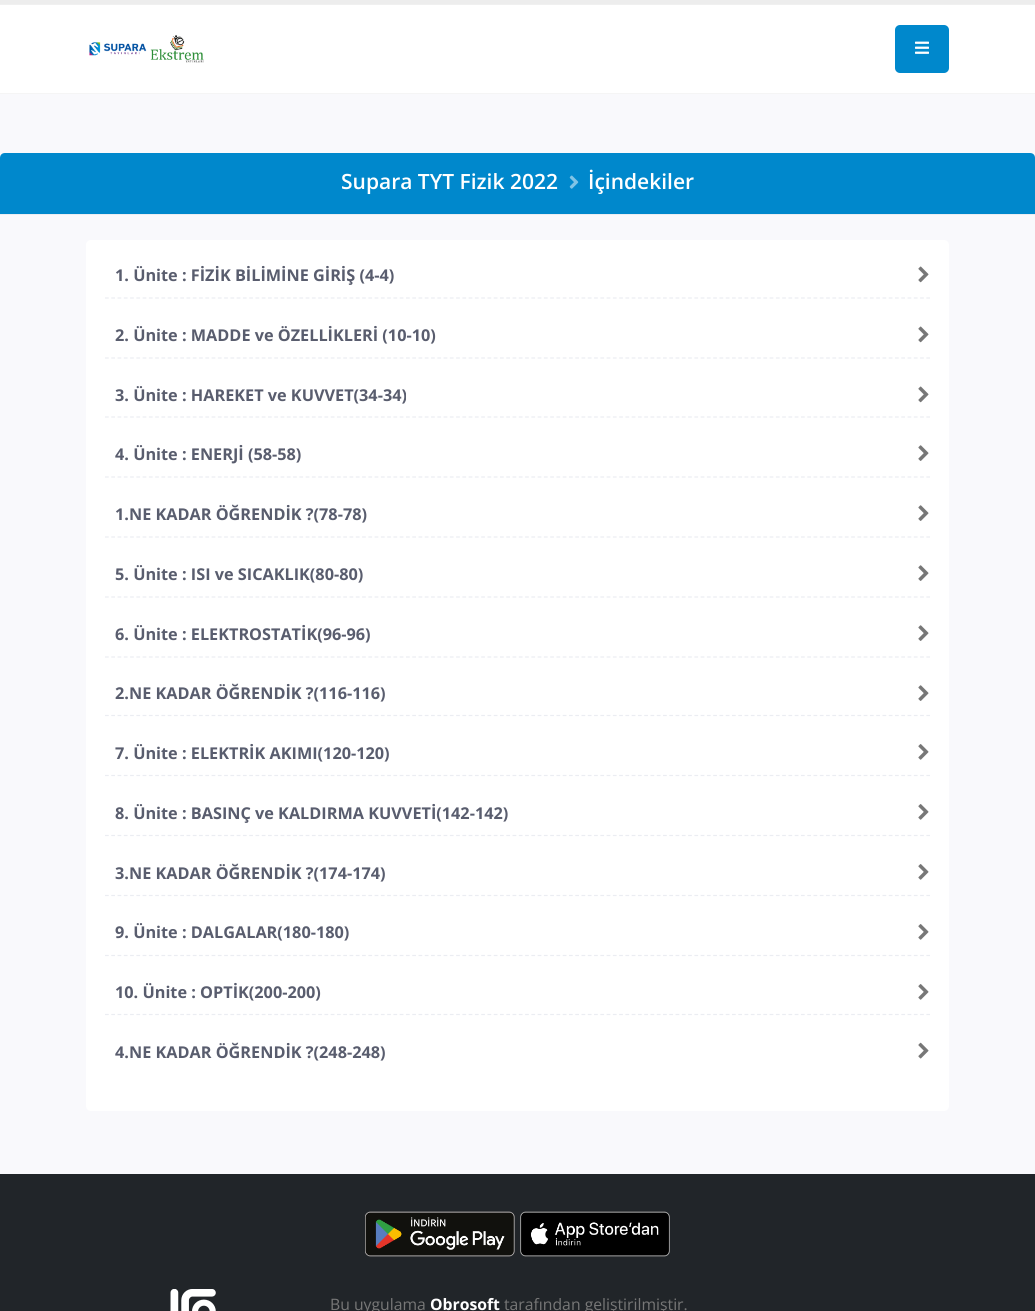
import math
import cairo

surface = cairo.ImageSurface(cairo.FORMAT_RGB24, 1035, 1311)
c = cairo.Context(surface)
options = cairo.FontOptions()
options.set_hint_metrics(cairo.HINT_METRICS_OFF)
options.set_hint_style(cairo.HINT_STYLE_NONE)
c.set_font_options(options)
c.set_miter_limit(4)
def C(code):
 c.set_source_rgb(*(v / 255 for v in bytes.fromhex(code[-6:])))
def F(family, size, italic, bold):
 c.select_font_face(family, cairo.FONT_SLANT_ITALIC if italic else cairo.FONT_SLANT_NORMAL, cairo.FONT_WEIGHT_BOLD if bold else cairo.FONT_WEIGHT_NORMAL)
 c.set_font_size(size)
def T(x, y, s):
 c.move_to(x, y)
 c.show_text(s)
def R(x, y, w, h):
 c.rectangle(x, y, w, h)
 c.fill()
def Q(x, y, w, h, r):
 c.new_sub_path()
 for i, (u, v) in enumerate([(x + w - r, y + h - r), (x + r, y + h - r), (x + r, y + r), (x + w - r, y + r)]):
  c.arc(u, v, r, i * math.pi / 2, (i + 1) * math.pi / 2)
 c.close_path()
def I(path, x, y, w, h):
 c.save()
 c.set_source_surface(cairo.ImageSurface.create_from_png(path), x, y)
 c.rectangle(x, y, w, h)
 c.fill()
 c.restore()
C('f9f9fc')
c.paint()
C('ffffff')
R(0,5,1035,88)
C('ededed')
R(0,0,1035,4)
C('f5f5f5')
R(0,93,1035,1)
C('f0f0f0')
R(0,4,1035,1)
I('1.png',89,35,115,28)
C('0088cc')
Q(895,25,54,48,5)
c.fill()
I('2.png',915,41,14,13)
c.new_path()
c.move_to(5,153)
c.line_to(1030,153)
c.curve_to(1033,153,1035,155,1035,158)
c.line_to(1035,215)
c.line_to(0,215)
c.line_to(0,158)
c.curve_to(0,155,2,153,5,153)
c.close_path()
c.fill()
C('ebedf2')
R(0,214,1035,1)
F('Open Sans SemiBold',21,0,0)
C('ffffff')
T(341,189,'Supara TYT Fizik 2022')
I('3.png',569,175,10,14)
T(588,189,'İçindekiler')
Q(86,240,863,871,5)
c.fill()
c.new_path()
c.move_to(105,298)
c.line_to(930,298)
C('ebedf2')
c.set_line_width(1.2)
c.set_dash([3.75,2.52])
c.stroke()
F('Open Sans',16.25,0,1)
C('595d6e')
T(115,281,'1. Ünite : FİZİK BİLİMİNE GİRİŞ (4-4)')
I('4.png',918,266,11,17)
c.new_path()
c.move_to(105,358)
c.line_to(930,358)
C('ebedf2')
c.stroke()
C('595d6e')
T(115,341,'2. Ünite : MADDE ve ÖZELLİKLERİ (10-10)')
I('4.png',918,326,11,17)
c.new_path()
c.move_to(105,417)
c.line_to(930,417)
C('ebedf2')
c.stroke()
C('595d6e')
T(115,401,'3. Ünite : HAREKET ve KUVVET(34-34)')
I('4.png',918,386,11,17)
c.new_path()
c.move_to(105,477)
c.line_to(930,477)
C('ebedf2')
c.stroke()
C('595d6e')
T(115,460,'4. Ünite : ENERJİ (58-58)')
I('5.png',918,445,11,16)
c.new_path()
c.move_to(105,537)
c.line_to(930,537)
C('ebedf2')
c.stroke()
C('595d6e')
T(115,520,'1.NE KADAR ÖĞRENDİK ?(78-78)')
I('5.png',918,505,11,16)
c.new_path()
c.move_to(105,597)
c.line_to(930,597)
C('ebedf2')
c.stroke()
C('595d6e')
T(115,580,'5. Ünite : ISI ve SICAKLIK(80-80)')
I('5.png',918,565,11,16)
c.new_path()
c.move_to(105,657)
c.line_to(930,657)
C('ebedf2')
c.stroke()
C('595d6e')
T(115,640,'6. Ünite : ELEKTROSTATİK(96-96)')
I('5.png',918,625,11,16)
c.new_path()
c.move_to(105,715.5)
c.line_to(930,715.5)
C('ebedf2')
c.stroke()
C('595d6e')
T(115,699,'2.NE KADAR ÖĞRENDİK ?(116-116)')
I('5.png',918,685,11,16)
c.new_path()
c.move_to(105,775.5)
c.line_to(930,775.5)
C('ebedf2')
c.stroke()
C('595d6e')
T(115,759,'7. Ünite : ELEKTRİK AKIMI(120-120)')
I('6.png',918,744,11,16)
c.new_path()
c.move_to(105,835.5)
c.line_to(930,835.5)
C('ebedf2')
c.stroke()
C('595d6e')
T(115,819,'8. Ünite : BASINÇ ve KALDIRMA KUVVETİ(142-142)')
I('6.png',918,804,11,16)
c.new_path()
c.move_to(105,895.5)
c.line_to(930,895.5)
C('ebedf2')
c.stroke()
C('595d6e')
T(115,879,'3.NE KADAR ÖĞRENDİK ?(174-174)')
I('6.png',918,864,11,16)
c.new_path()
c.move_to(105,955.5)
c.line_to(930,955.5)
C('ebedf2')
c.stroke()
C('595d6e')
T(115,938,'9. Ünite : DALGALAR(180-180)')
I('6.png',918,924,11,16)
c.new_path()
c.move_to(105,1014.5)
c.line_to(930,1014.5)
C('ebedf2')
c.stroke()
C('595d6e')
T(115,998,'10. Ünite : OPTİK(200-200)')
I('6.png',918,984,11,16)
T(115,1058,'4.NE KADAR ÖĞRENDİK ?(248-248)')
I('7.png',918,1042,11,17)
C('212529')
R(0,1174,1035,137)
I('8.png',365,1211,150,46)
I('9.png',520,1211,150,46)
I('10.png',170,1289,46,22)
F('Open Sans',15.75,0,0)
C('777777')
T(330,1310,'Bu uygulama')
F('Open Sans',15.75,0,1)
C('ffffff')
T(430,1310,'Obrosoft')
F('Open Sans',15.75,0,0)
C('777777')
T(504,1310,'tarafından geliştirilmiştir.')
surface.write_to_png('o.png')
